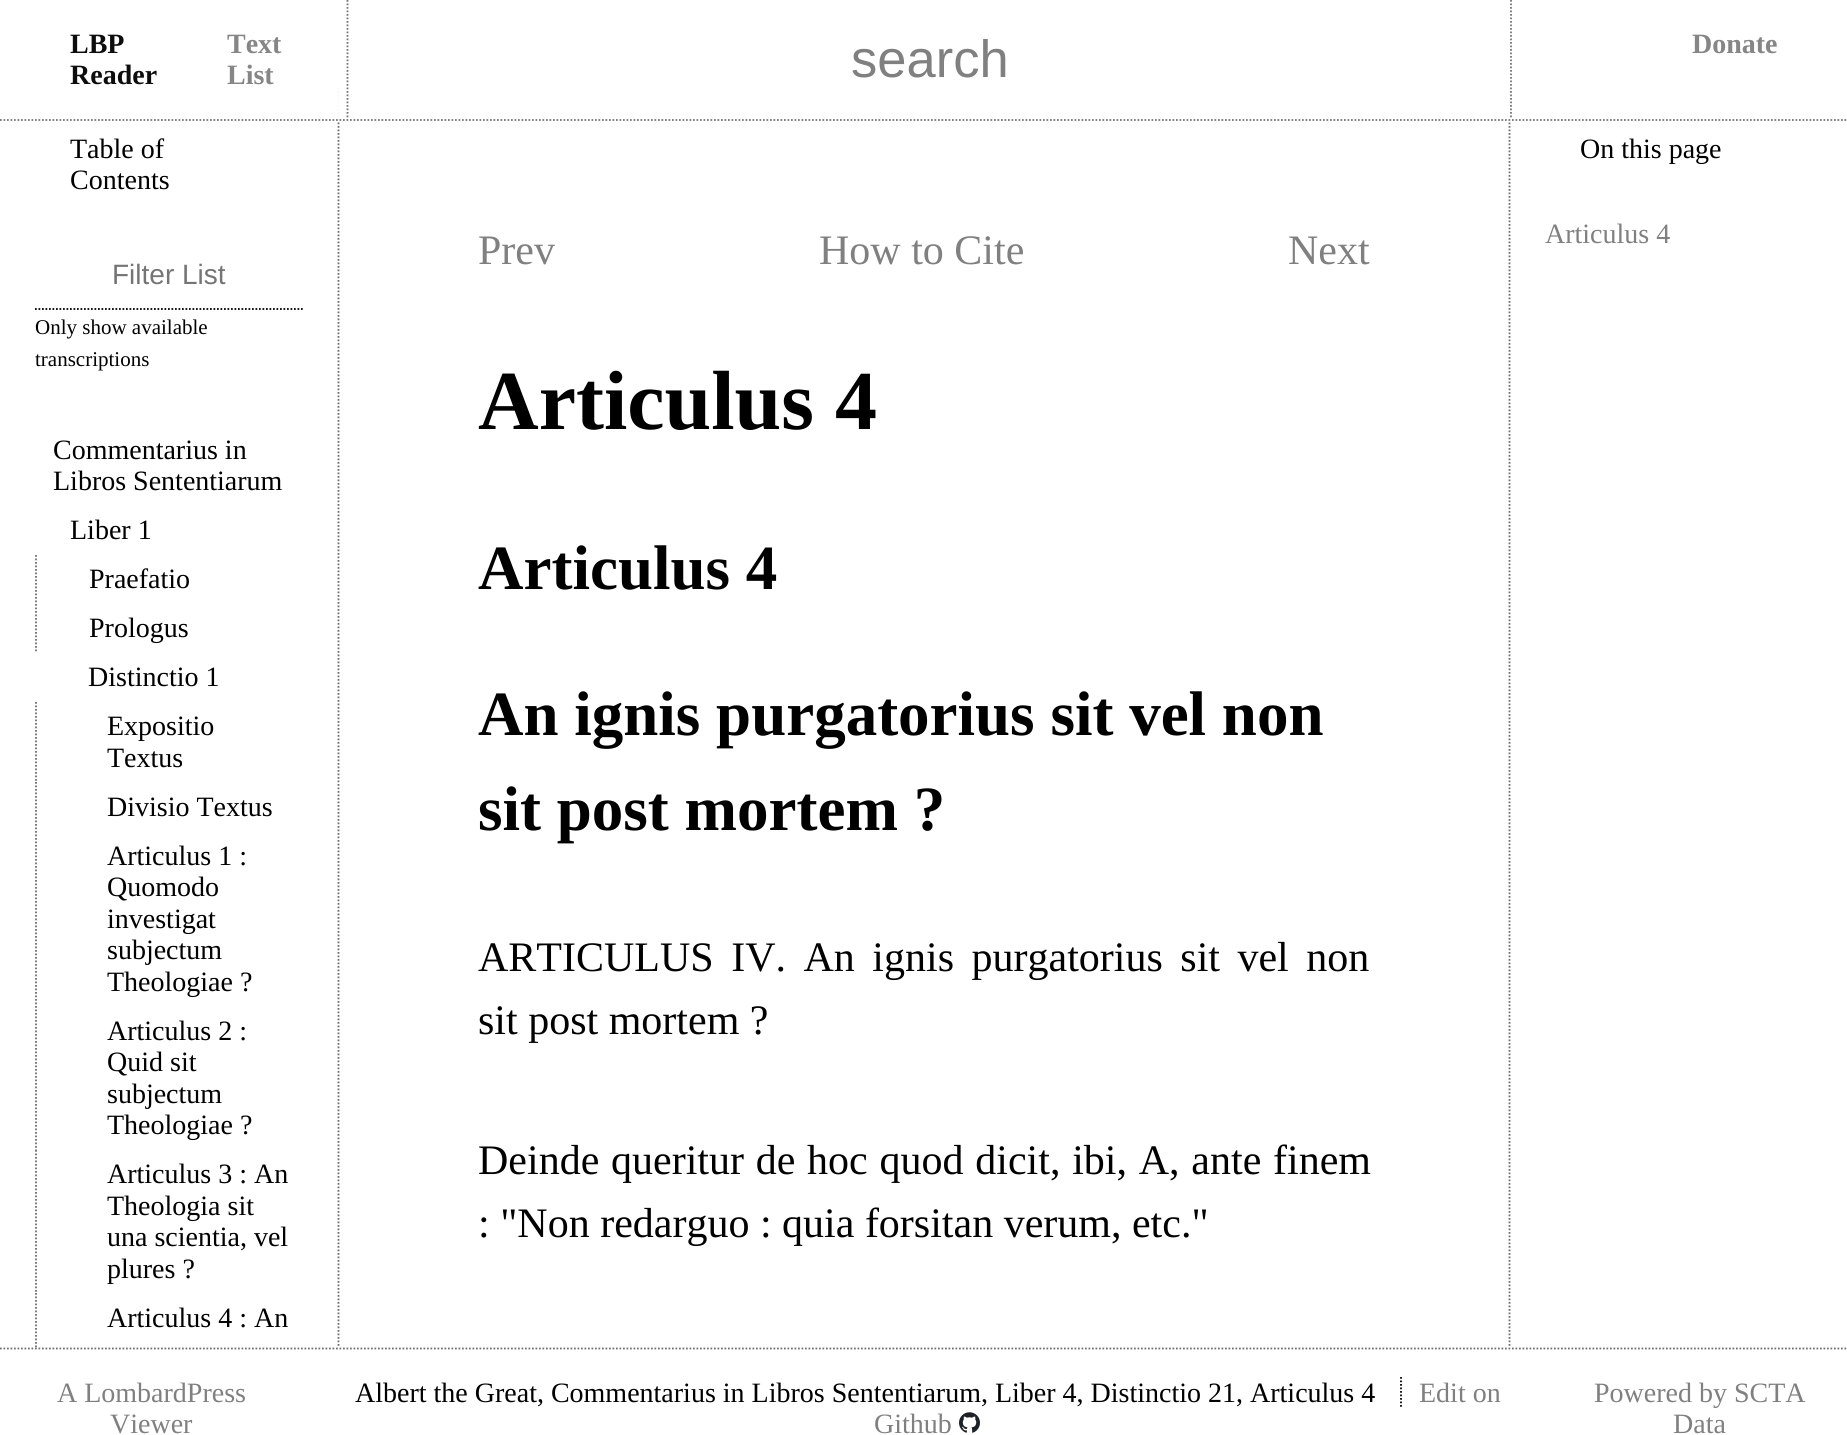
import math
import cairo

surface = cairo.ImageSurface(cairo.FORMAT_RGB24, 1847, 1435)
c = cairo.Context(surface)
options = cairo.FontOptions()
options.set_hint_metrics(cairo.HINT_METRICS_OFF)
options.set_hint_style(cairo.HINT_STYLE_NONE)
c.set_font_options(options)
c.set_miter_limit(4)
def C(code):
 c.set_source_rgb(*(v / 255 for v in bytes.fromhex(code[-6:])))
def F(family, size, italic, bold):
 c.select_font_face(family, cairo.FONT_SLANT_ITALIC if italic else cairo.FONT_SLANT_NORMAL, cairo.FONT_WEIGHT_BOLD if bold else cairo.FONT_WEIGHT_NORMAL)
 c.set_font_size(size)
def T(x, y, s):
 c.move_to(x, y)
 c.show_text(s)
def L(x, y, s, letter, word):
 c.move_to(x, y)
 for ch in s:
  c.show_text(ch)
  c.rel_move_to(letter + word * (ch == ' '), 0)
def R(x, y, w, h):
 c.rectangle(x, y, w, h)
 c.fill()
def I(path, x, y, w, h):
 c.save()
 c.set_source_surface(cairo.ImageSurface.create_from_png(path), x, y)
 c.rectangle(x, y, w, h)
 c.fill()
 c.restore()
C('ffffff')
c.paint()
c.new_path()
c.move_to(338.5,87.5)
c.line_to(338.5,1347.5)
C('6d6d6d')
c.set_line_width(1.8)
c.set_dash([1.75,1.75])
c.stroke()
c.new_path()
c.move_to(1509.5,87.5)
c.line_to(1509.5,1347.5)
c.stroke()
c.set_source_rgba(1,1,1,0.95)
R(337,87,1174,34)
c.new_path()
c.move_to(0,120)
c.line_to(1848,120)
c.set_source_rgba(0,0,0,0.54)
c.stroke()
c.new_path()
c.move_to(347.5,0)
c.line_to(347.5,119)
C('747474')
c.stroke()
F('Liberation Serif',28,0,1)
C('0d0d0d')
T(70,53,'LBP')
T(70,84,'Reader')
C('868686')
T(227,53,'Text')
T(227,84,'List')
F('Liberation Sans',52.5,0,0)
C('808080')
T(851,77,'search')
c.new_path()
c.move_to(1511,0)
c.line_to(1511,119)
c.set_source_rgba(0,0,0,0.54)
c.stroke()
F('Liberation Serif',28,0,1)
C('868686')
T(1692,53,'Donate')
F('Liberation Serif',28,0,0)
C('000000')
T(70,158,'Table of')
T(70,189,'Contents')
c.new_path()
c.move_to(35,309)
c.line_to(303,309)
c.stroke()
F('Liberation Sans',28,0,0)
C('757575')
T(112,284,'Filter List')
F('Liberation Serif',21,0,0)
C('000000')
T(35,334,'Only show available')
T(35,366,'transcriptions')
F('Liberation Serif',28,0,0)
T(53,459,'Commentarius in')
T(53,490,'Libros Sententiarum')
T(70,539,'Liber 1')
c.new_path()
c.move_to(36,555)
c.line_to(36,604)
C('6d6d6d')
c.stroke()
C('000000')
T(89,588,'Praefatio')
c.new_path()
c.move_to(36,604)
c.line_to(36,653)
C('6d6d6d')
c.stroke()
C('000000')
T(89,637,'Prologus')
T(88,686,'Distinctio 1')
c.new_path()
c.move_to(36,702)
c.line_to(36,782)
C('6d6d6d')
c.stroke()
C('000000')
T(107,735,'Expositio')
T(107,767,'Textus')
c.new_path()
c.move_to(36,782)
c.line_to(36,831)
C('6d6d6d')
c.stroke()
C('000000')
T(107,816,'Divisio Textus')
c.new_path()
c.move_to(36,831)
c.line_to(36,1006)
C('6d6d6d')
c.stroke()
C('000000')
T(107,865,'Articulus 1 :')
T(107,896,'Quomodo')
T(107,928,'investigat')
T(107,959,'subjectum')
T(107,991,'Theologiae ?')
c.new_path()
c.move_to(36,1006)
c.line_to(36,1150)
C('6d6d6d')
c.stroke()
C('000000')
T(107,1040,'Articulus 2 :')
T(107,1071,'Quid sit')
T(107,1103,'subjectum')
T(107,1134,'Theologiae ?')
c.new_path()
c.move_to(36,1150)
c.line_to(36,1293)
C('6d6d6d')
c.stroke()
C('000000')
T(107,1183,'Articulus 3 : An')
T(107,1215,'Theologia sit')
T(107,1246,'una scientia, vel')
T(107,1278,'plures ?')
c.save()
c.rectangle(0,88,338,1260)
c.clip()
c.new_path()
c.move_to(36,1293)
c.line_to(36,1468)
C('6d6d6d')
c.stroke()
c.restore()
T(107,1327,'Articulus 4 : An')
T(1580,158,'On this page')
C('808080')
T(1545,243,'Articulus 4')
F('Liberation Serif',42,0,0)
T(478,264,'Prev')
T(819,264,'How to Cite')
T(1288,264,'Next')
F('Liberation Serif',84,0,1)
C('000000')
T(478,429,'Articulus 4')
F('Liberation Serif',63,0,1)
T(478,589,'Articulus 4')
T(478,735,'An ignis purgatorius sit vel non')
T(478,830,'sit post mortem ?')
F('Liberation Serif',42,0,0)
L(478,971,'ARTICULUS IV. An ignis purgatorius sit vel non',0,7)
T(478,1034,'sit post mortem ?')
L(478,1174,'Deinde queritur de hoc quod dicit, ibi, A, ante finem',0,1.25)
T(478,1237,': "Non redarguo : quia forsitan verum, etc."')
c.new_path()
c.move_to(0,1348.5)
c.line_to(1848,1348.5)
C('6f6f6f')
c.stroke()
F('Liberation Serif',28,0,0)
C('808080')
T(57,1402,'A LombardPress')
T(110,1433,'Viewer')
C('000000')
T(355,1402,'Albert the Great, Commentarius in Libros Sententiarum, Liber 4, Distinctio 21, Articulus 4')
C('808080')
T(1419,1402,'Edit on')
c.new_path()
c.move_to(1401,1377)
c.line_to(1401,1407)
C('030303')
c.stroke()
C('808080')
T(874,1433,'Github')
I('1.png',959,1412,21,21)
T(1594,1402,'Powered by SCTA')
T(1673,1433,'Data')
surface.write_to_png('o.png')
